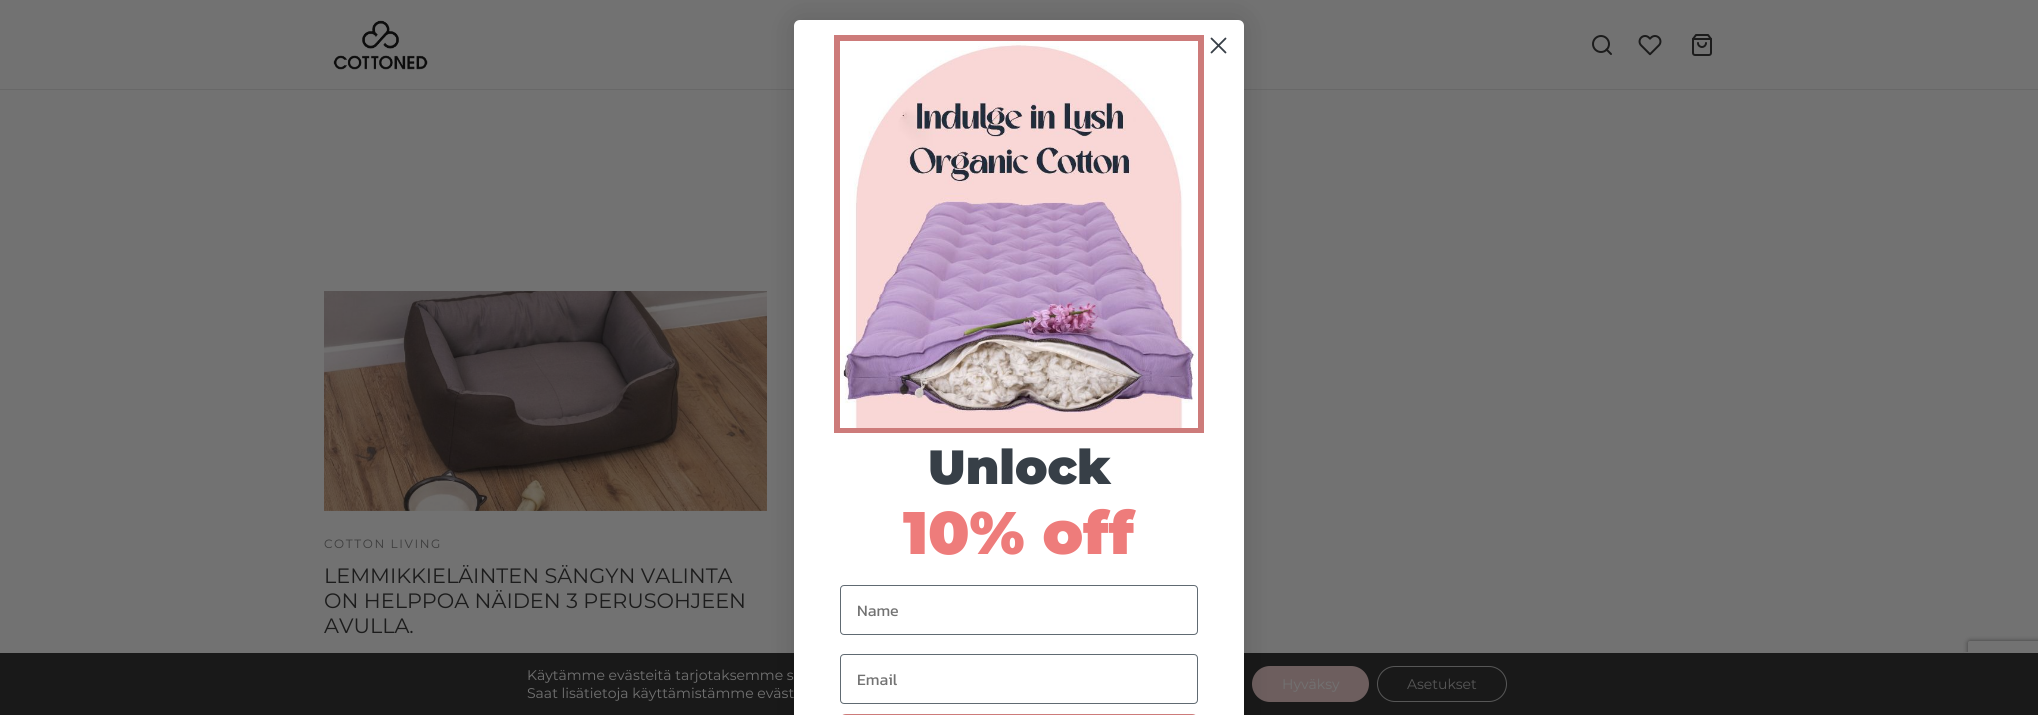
import math
import cairo

surface = cairo.ImageSurface(cairo.FORMAT_RGB24, 2038, 715)
c = cairo.Context(surface)
options = cairo.FontOptions()
options.set_hint_metrics(cairo.HINT_METRICS_OFF)
options.set_hint_style(cairo.HINT_STYLE_NONE)
c.set_font_options(options)
c.set_miter_limit(4)
def C(code):
 c.set_source_rgb(*(v / 255 for v in bytes.fromhex(code[-6:])))
def F(family, size, italic, bold):
 c.select_font_face(family, cairo.FONT_SLANT_ITALIC if italic else cairo.FONT_SLANT_NORMAL, cairo.FONT_WEIGHT_BOLD if bold else cairo.FONT_WEIGHT_NORMAL)
 c.set_font_size(size)
def T(x, y, s):
 c.move_to(x, y)
 c.show_text(s)
def L(x, y, s, letter, word):
 c.move_to(x, y)
 for ch in s:
  c.show_text(ch)
  c.rel_move_to(letter + word * (ch == ' '), 0)
def R(x, y, w, h):
 c.rectangle(x, y, w, h)
 c.fill()
def Q(x, y, w, h, r):
 c.new_sub_path()
 for i, (u, v) in enumerate([(x + w - r, y + h - r), (x + r, y + h - r), (x + r, y + r), (x + w - r, y + r)]):
  c.arc(u, v, r, i * math.pi / 2, (i + 1) * math.pi / 2)
 c.close_path()
def S(x, y, w, h, r, blur, alpha):
 c.push_group_with_content(cairo.CONTENT_ALPHA)
 c.set_operator(cairo.OPERATOR_SOURCE)
 for i in range(15, -16, -2):
  e = blur * i / 6
  if min(w, h) + 2 * e > 0:
   c.set_source_rgba(0, 0, 0, alpha * math.erfc((i - 1) / 8.5) / 2)
   Q(x - e, y - e, w + 2 * e, h + 2 * e, max(0, min(r + e + blur * .6, min(w, h) / 2 + e)))
   c.fill()
 c.mask(c.pop_group())
def I(path, x, y, w, h):
 c.save()
 c.set_source_surface(cairo.ImageSurface.create_from_png(path), x, y)
 c.rectangle(x, y, w, h)
 c.fill()
 c.restore()
C('727272')
c.paint()
I('1.png',333,20,95,50)
c.arc(1601,44,8,0,2 * math.pi)
C('1c1c1c')
c.stroke()
c.new_path()
c.move_to(1611,54)
c.line_to(1606.5,49.5)
c.set_line_cap(cairo.LINE_CAP_ROUND)
c.set_line_join(cairo.LINE_JOIN_ROUND)
c.stroke()
I('2.png',1638,35,24,21)
I('3.png',1692,34,20,22)
C('686868')
R(0,89,2038,1)
I('4.png',324,291,443,220)
F('Montserrat',12,0,0)
C('3c3c3c')
L(324,548,'COTTON LIVING',1.6,0)
F('Montserrat',20.8,0,0)
C('1c1c1c')
T(324,583,'LEMMIKKIELÄINTEN SÄNGYN VALINTA')
T(324,608,'ON HELPPOA NÄIDEN 3 PERUSOHJEEN')
T(324,633,'AVULLA.')
c.save()
c.set_fill_rule(cairo.FILL_RULE_EVEN_ODD)
c.new_path()
c.move_to(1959,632)
c.line_to(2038,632)
c.line_to(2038,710)
c.line_to(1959,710)
c.close_path()
c.move_to(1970,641)
c.line_to(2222,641)
c.curve_to(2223,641,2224,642,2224,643)
c.line_to(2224,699)
c.curve_to(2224,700,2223,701,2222,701)
c.line_to(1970,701)
c.curve_to(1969,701,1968,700,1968,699)
c.line_to(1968,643)
c.curve_to(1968,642,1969,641,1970,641)
c.close_path()
c.clip()
C('3f3f3f')
S(1968,641,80,60,2,2.5,1)
c.restore()
C('191919')
R(0,653,2038,62)
C('6d5e5e')
Q(1252,666,117,36,18)
c.fill()
C('000000')
S(794,20,450,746,6,15,.15)
C('ffffff')
c.new_path()
c.move_to(800,20)
c.line_to(1238,20)
c.curve_to(1241.5,20,1244,22.5,1244,26)
c.line_to(1244,715)
c.line_to(794,715)
c.line_to(794,26)
c.curve_to(794,22.5,796.5,20,800,20)
c.close_path()
c.fill()
c.new_path()
c.move_to(1211.5,38.5)
c.line_to(1225.5,52.5)
c.move_to(1211.5,52.5)
c.line_to(1225.5,38.5)
c.close_path()
C('373f47')
c.set_line_width(1.8)
c.stroke()
C('cd7b7a')
R(834,35,370,398)
I('5.png',840,41,358,387)
F('Montserrat Black',48,0,0)
C('373f47')
T(928,484,'Unlock')
F('Montserrat Black',60,0,0)
C('ee7c7b')
T(903,554,'10% off')
Q(840.5,585.5,357,49,3.5)
C('606a72')
c.set_line_width(1)
c.set_line_cap(cairo.LINE_CAP_BUTT)
c.set_line_join(cairo.LINE_JOIN_MITER)
c.stroke()
F('Kanit',16,0,0)
C('727272')
T(857,616,'Name')
Q(840.5,654.5,357,49,3.5)
C('606a72')
c.stroke()
C('727272')
T(857,685,'Email')
C('cd7b7a')
c.new_path()
c.move_to(846,714)
c.line_to(1192,714)
c.curve_to(1195.5,714,1198,716.5,1198,720)
c.line_to(1198,715)
c.line_to(840,715)
c.line_to(840,720)
c.curve_to(840,716.5,842.5,714,846,714)
c.close_path()
c.fill()
C('727272')
R(1964,652,4,1)
F('Montserrat',14,0,0)
T(527,680,'Käytämme evästeitä tarjotaksemme s')
T(527,698,'Saat lisätietoja käyttämistämme eväst')
T(1282,689,'Hyväksy')
Q(1377.5,666.5,129,35,17.5)
C('575757')
c.stroke()
T(1407,689,'Asetukset')
surface.write_to_png('o.png')
